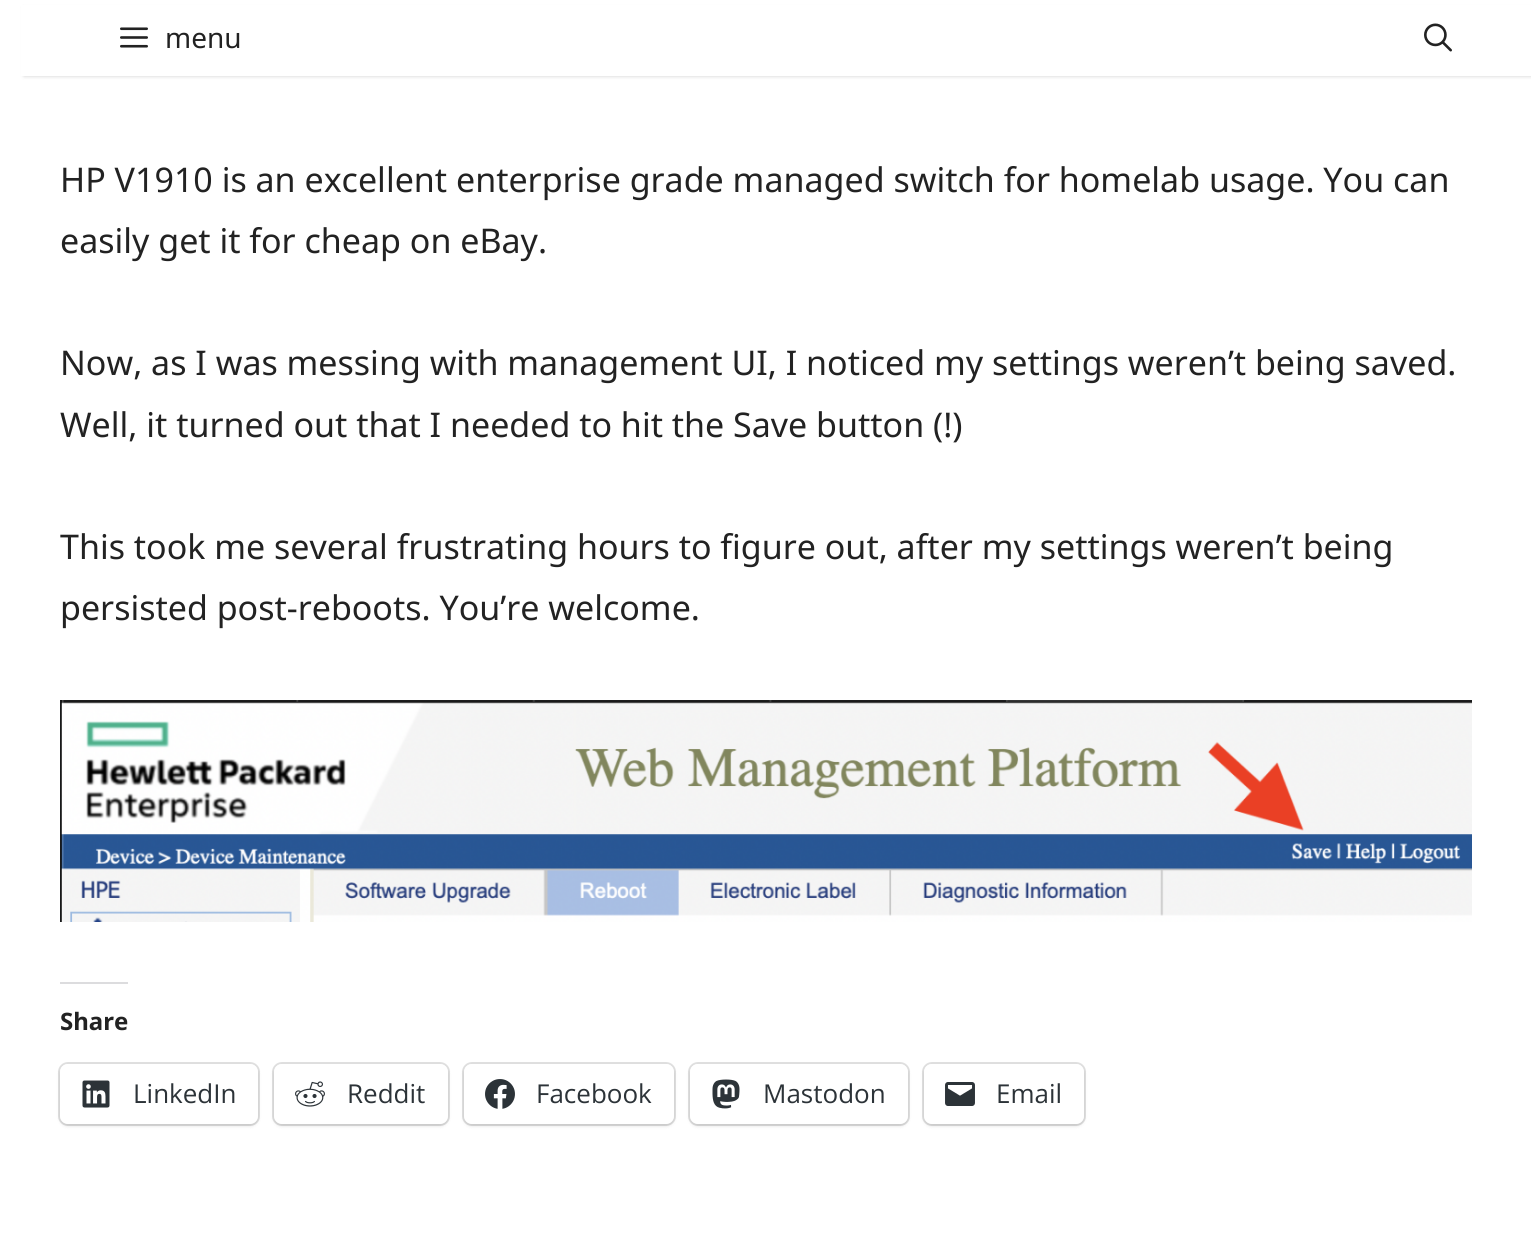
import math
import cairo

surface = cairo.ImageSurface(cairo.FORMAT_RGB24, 1531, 1243)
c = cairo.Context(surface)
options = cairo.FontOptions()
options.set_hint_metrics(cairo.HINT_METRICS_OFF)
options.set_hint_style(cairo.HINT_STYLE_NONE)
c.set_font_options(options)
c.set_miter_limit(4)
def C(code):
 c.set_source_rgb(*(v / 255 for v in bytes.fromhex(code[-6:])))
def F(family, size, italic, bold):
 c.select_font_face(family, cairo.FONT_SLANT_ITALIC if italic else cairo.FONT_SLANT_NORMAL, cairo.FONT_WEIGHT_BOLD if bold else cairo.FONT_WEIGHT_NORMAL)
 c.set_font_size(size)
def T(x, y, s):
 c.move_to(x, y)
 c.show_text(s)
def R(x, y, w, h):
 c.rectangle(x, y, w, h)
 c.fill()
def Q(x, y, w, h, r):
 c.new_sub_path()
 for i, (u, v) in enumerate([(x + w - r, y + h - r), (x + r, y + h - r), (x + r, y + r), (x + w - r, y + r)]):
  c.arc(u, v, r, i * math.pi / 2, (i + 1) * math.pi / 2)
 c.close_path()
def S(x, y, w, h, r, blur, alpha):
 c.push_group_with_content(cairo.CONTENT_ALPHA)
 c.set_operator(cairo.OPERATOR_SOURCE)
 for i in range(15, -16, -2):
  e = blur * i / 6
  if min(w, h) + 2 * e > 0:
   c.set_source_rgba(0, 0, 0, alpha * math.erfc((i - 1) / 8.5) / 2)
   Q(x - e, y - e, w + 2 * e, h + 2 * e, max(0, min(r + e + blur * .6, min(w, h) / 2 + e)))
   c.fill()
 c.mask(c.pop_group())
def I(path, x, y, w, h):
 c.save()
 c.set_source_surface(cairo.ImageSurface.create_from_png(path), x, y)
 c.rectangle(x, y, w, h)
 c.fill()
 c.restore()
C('ffffff')
c.paint()
C('000000')
S(24,8,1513,68,0,2,.2)
C('ffffff')
R(21,5,1510,71)
I('1.png',120,27,28,21)
F('Noto Sans',28,0,0)
C('222222')
T(165,48,'menu')
I('2.png',1424,23,28,29)
F('Noto Sans',34,0,0)
T(60,192,'HP V1910 is an excellent enterprise grade managed switch for homelab usage. You can')
T(60,253,'easily get it for cheap on eBay.')
T(60,375,'Now, as I was messing with management UI, I noticed my settings weren’t being saved.')
T(60,437,'Well, it turned out that I needed to hit the Save button (!)')
T(60,559,'This took me several frustrating hours to figure out, after my settings weren’t being')
T(60,620,'persisted post-reboots. You’re welcome.')
I('3.png',60,700,1412,222)
C('dcdcde')
R(60,982,68,2)
F('Noto Sans',24,0,1)
C('222222')
T(60,1030,'Share')
Q(59,1063,200,62,9)
C('e0e0e0')
c.stroke()
C('000000')
S(60,1066,198,60,8,2,.12)
C('ffffff')
Q(60,1064,198,60,8)
c.fill()
I('4.png',82,1080,28,28)
F('Open Sans',26,0,0)
C('2c3338')
T(133,1103,'LinkedIn')
Q(273,1063,176,62,9)
C('e0e0e0')
c.stroke()
C('000000')
S(274,1066,174,60,8,2,.12)
C('ffffff')
Q(274,1064,174,60,8)
c.fill()
I('5.png',295,1081,30,26)
C('2c3338')
T(347,1103,'Reddit')
Q(463,1063,212,62,9)
C('e0e0e0')
c.stroke()
C('000000')
S(464,1066,210,60,8,2,.12)
C('ffffff')
Q(464,1064,210,60,8)
c.fill()
I('6.png',485,1079,30,30)
C('2c3338')
T(536,1103,'Facebook')
Q(689,1063,220,62,9)
C('e0e0e0')
c.stroke()
C('000000')
S(690,1066,218,60,8,2,.12)
C('ffffff')
Q(690,1064,218,60,8)
c.fill()
I('7.png',712,1079,28,30)
C('2c3338')
T(763,1103,'Mastodon')
Q(923,1063,162,62,9)
C('e0e0e0')
c.stroke()
C('000000')
S(924,1066,160,60,8,2,.12)
C('ffffff')
Q(924,1064,160,60,8)
c.fill()
I('8.png',945,1082,30,24)
C('2c3338')
T(996,1103,'Email')
surface.write_to_png('o.png')
